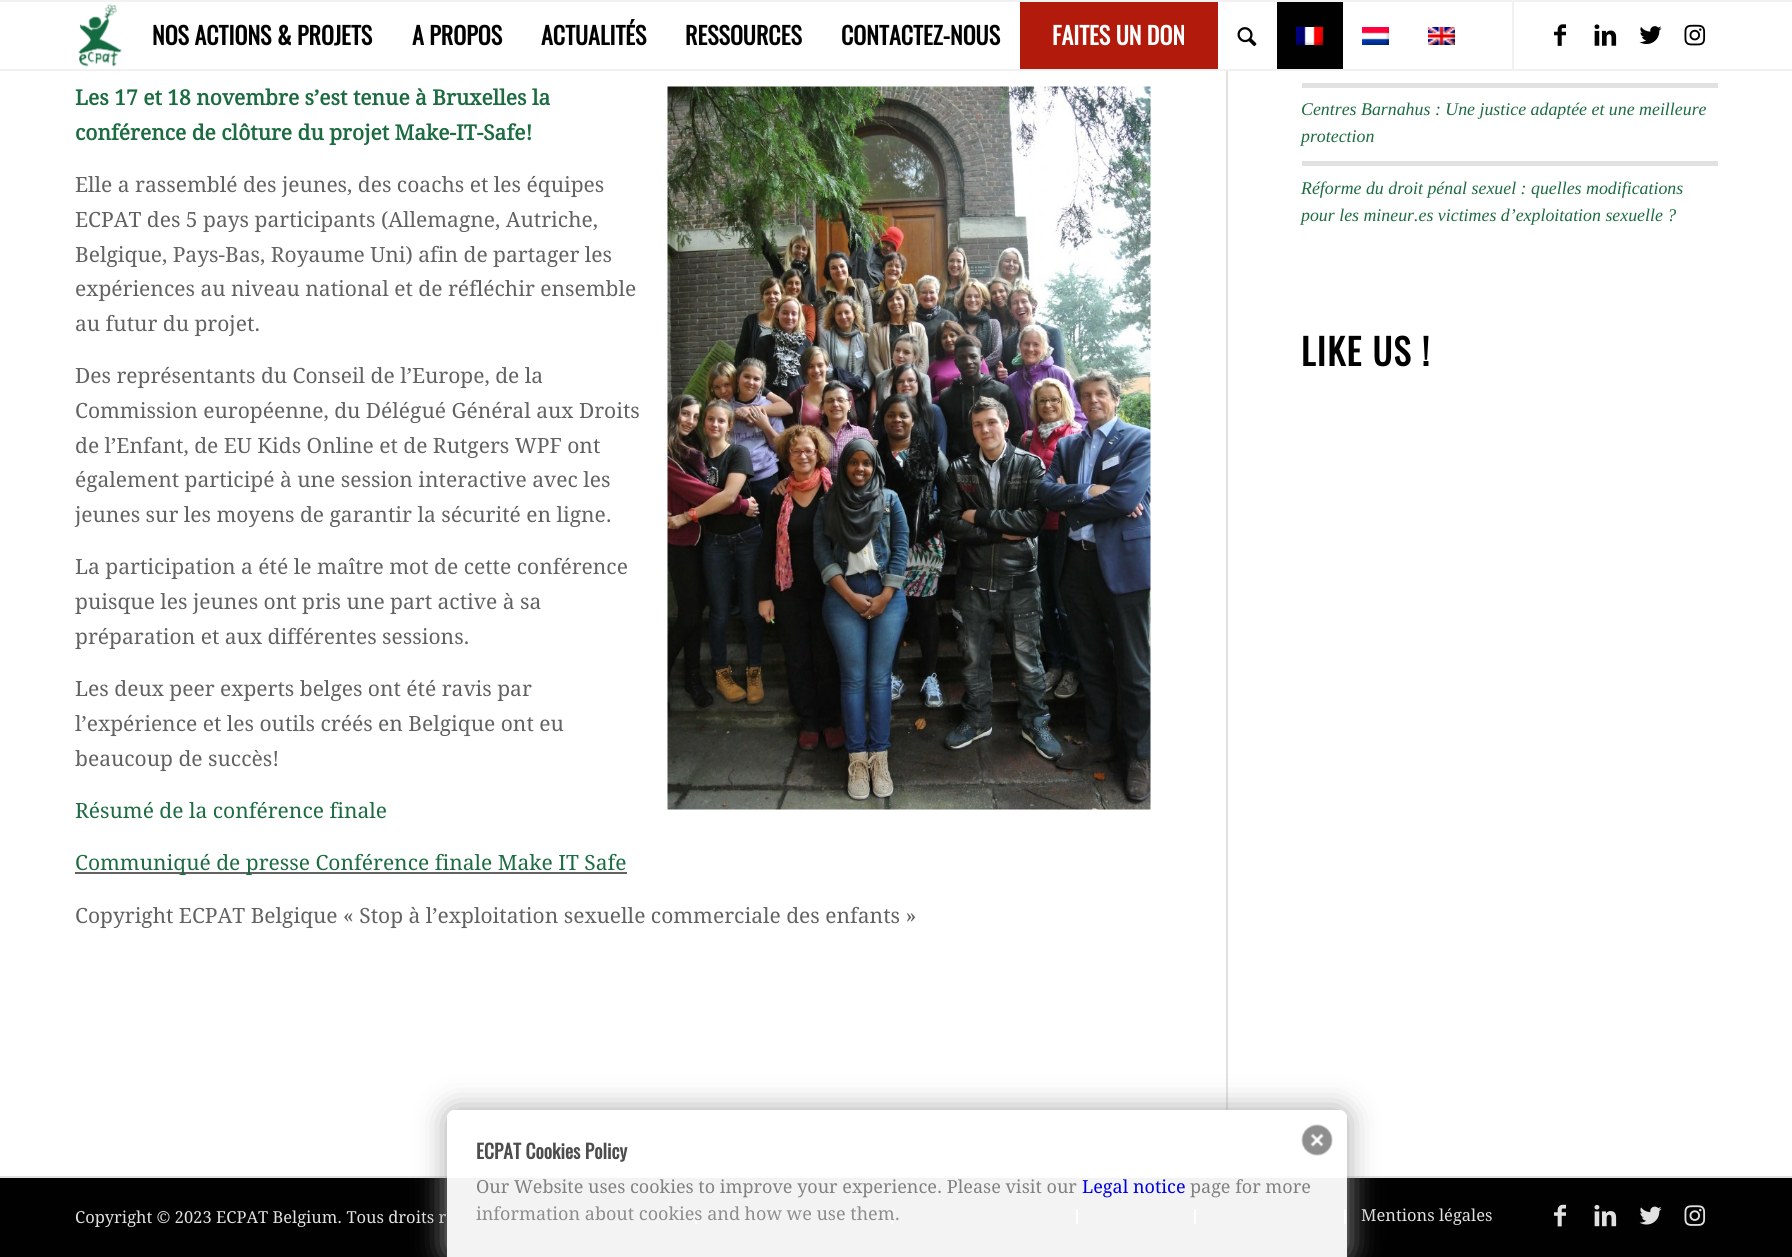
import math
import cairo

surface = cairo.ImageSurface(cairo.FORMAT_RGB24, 1792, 1257)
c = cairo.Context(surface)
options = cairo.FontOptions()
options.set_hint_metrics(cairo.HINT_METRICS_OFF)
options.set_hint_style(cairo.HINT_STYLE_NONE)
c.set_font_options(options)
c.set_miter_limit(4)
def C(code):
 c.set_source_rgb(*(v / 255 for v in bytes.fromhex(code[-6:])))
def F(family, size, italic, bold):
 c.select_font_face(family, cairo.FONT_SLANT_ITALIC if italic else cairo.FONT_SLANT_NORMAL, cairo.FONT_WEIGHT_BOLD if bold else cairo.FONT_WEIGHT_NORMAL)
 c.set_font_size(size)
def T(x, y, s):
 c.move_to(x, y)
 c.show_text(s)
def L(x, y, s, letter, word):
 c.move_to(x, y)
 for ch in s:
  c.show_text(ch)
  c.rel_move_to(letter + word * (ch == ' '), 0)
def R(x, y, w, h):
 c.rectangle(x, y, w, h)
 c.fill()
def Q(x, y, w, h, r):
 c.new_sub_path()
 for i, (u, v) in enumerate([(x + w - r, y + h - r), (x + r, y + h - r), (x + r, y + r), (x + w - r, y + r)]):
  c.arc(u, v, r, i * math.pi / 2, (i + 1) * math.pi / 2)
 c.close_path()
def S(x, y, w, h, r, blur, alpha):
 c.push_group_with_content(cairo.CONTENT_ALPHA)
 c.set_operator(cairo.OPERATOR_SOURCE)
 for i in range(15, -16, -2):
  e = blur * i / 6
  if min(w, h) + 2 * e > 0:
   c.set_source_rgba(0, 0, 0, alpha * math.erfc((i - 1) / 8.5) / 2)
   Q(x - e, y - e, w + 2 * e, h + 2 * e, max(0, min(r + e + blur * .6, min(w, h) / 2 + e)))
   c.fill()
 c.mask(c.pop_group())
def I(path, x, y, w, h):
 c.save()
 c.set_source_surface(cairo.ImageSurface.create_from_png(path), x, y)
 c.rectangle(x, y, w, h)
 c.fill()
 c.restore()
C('ffffff')
c.paint()
C('f1f1f1')
R(0,0,1792,2)
R(0,69,1792,2)
I('1.png',78,4,44,63)
R(1512,2,2,67)
F('Oswald',24,0,1)
C('010101')
T(152,45,'NOS ACTIONS & PROJETS')
T(412,45,'A PROPOS')
T(541,45,'ACTUALITÉS')
T(685,45,'RESSOURCES')
T(841,45,'CONTACTEZ-NOUS')
C('b21b0b')
R(1020,2,198,67)
C('ffffff')
T(1052,45,'FAITES UN DON')
I('2.png',1237,27,20,20)
C('010101')
R(1277,2,66,67)
I('3.png',1296,27,27,18)
I('4.png',1362,27,27,18)
I('5.png',1428,27,27,18)
I('6.png',1554,24,12,22)
I('7.png',1594,24,23,22)
I('8.png',1639,26,23,18)
I('9.png',1684,24,22,22)
C('e1e1e1')
R(1226,71,2,1105)
F('Droid Serif',21,0,1)
C('1c6b41')
T(75,105,'Les 17 et 18 novembre s’est tenue à Bruxelles la')
T(75,140,'conférence de clôture du projet Make-IT-Safe!')
F('Droid Serif',21,0,0)
C('626262')
T(75,192,'Elle a rassemblé des jeunes, des coachs et les équipes')
T(75,227,'ECPAT des 5 pays participants (Allemagne, Autriche,')
T(75,262,'Belgique, Pays-Bas, Royaume Uni) afin de partager les')
T(75,296,'expériences au niveau national et de réfléchir ensemble')
T(75,331,'au futur du projet.')
T(75,383,'Des représentants du Conseil de l’Europe, de la')
T(75,418,'Commission européenne, du Délégué Général aux Droits')
T(75,453,'de l’Enfant, de EU Kids Online et de Rutgers WPF ont')
T(75,487,'également participé à une session interactive avec les')
T(75,522,'jeunes sur les moyens de garantir la sécurité en ligne.')
T(75,574,'La participation a été le maître mot de cette conférence')
T(75,609,'puisque les jeunes ont pris une part active à sa')
T(75,644,'préparation et aux différentes sessions.')
T(75,696,'Les deux peer experts belges ont été ravis par')
T(75,731,'l’expérience et les outils créés en Belgique ont eu')
T(75,766,'beaucoup de succès!')
I('10.png',667,86,484,724)
C('1c6b41')
T(75,818,'Résumé de la conférence finale')
C('626262')
R(75,872,552,2)
C('1c6b41')
T(75,870,'Communiqué de presse Conférence finale Make IT Safe')
C('626262')
T(75,923,'Copyright ECPAT Belgique « Stop à l’exploitation sexuelle commerciale des enfants »')
C('e1e1e1')
R(1302,83,416,5)
F('Liberation Serif',17.85,1,0)
C('1c6b41')
T(1301,115,'Centres Barnahus : Une justice adaptée et une meilleure')
T(1301,142,'protection')
C('e1e1e1')
R(1302,161,416,5)
C('1c6b41')
T(1301,194,'Réforme du droit pénal sexuel : quelles modifications')
T(1301,221,'pour les mineur.es victimes d’exploitation sexuelle ?')
F('Oswald',36,0,1)
C('010101')
L(1301,366,'LIKE US !',1.5,0)
R(0,1178,1792,79)
C('e1e1e1')
R(0,1176,1792,2)
F('Droid Serif',16.5,0,0)
T(75,1223,'Copyright © 2023 ECPAT Belgium. Tous droits r')
R(695,1209,2,15)
R(891,1209,2,15)
R(1076,1209,2,15)
R(1194,1209,2,15)
R(1344,1209,2,15)
T(1361,1221,'Mentions légales')
I('11.png',1554,1204,12,23)
I('12.png',1594,1205,23,22)
I('13.png',1639,1206,23,19)
I('14.png',1684,1205,22,21)
c.save()
c.set_fill_rule(cairo.FILL_RULE_EVEN_ODD)
c.new_path()
c.move_to(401,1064)
c.line_to(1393,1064)
c.line_to(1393,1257)
c.line_to(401,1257)
c.close_path()
c.move_to(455,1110)
c.line_to(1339,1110)
c.curve_to(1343.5,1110,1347,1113.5,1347,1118)
c.line_to(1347,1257)
c.line_to(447,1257)
c.line_to(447,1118)
c.curve_to(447,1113.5,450.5,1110,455,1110)
c.close_path()
c.clip()
C('a1a1a1')
S(447,1110,900,147,8,15,.95)
c.restore()
c.set_source_rgba(1,1,1,0.95)
c.new_path()
c.move_to(455,1110)
c.line_to(1339,1110)
c.curve_to(1343.5,1110,1347,1113.5,1347,1118)
c.line_to(1347,1257)
c.line_to(447,1257)
c.line_to(447,1118)
c.curve_to(447,1113.5,450.5,1110,455,1110)
c.close_path()
c.fill()
F('Oswald',19.5,0,1)
C('4d4d4d')
T(476,1159,'ECPAT Cookies Policy')
I('15.png',1301,1124,32,32)
F('Droid Serif',18,0,0)
C('818181')
T(476,1193,'Our Website uses cookies to improve your experience. Please visit our')
C('0000e2')
T(1082,1193,'Legal notice')
C('818181')
T(1190,1193,'page for more')
C('8d8d8d')
T(476,1220,'information about cookies and how we use them.')
surface.write_to_png('o.png')
